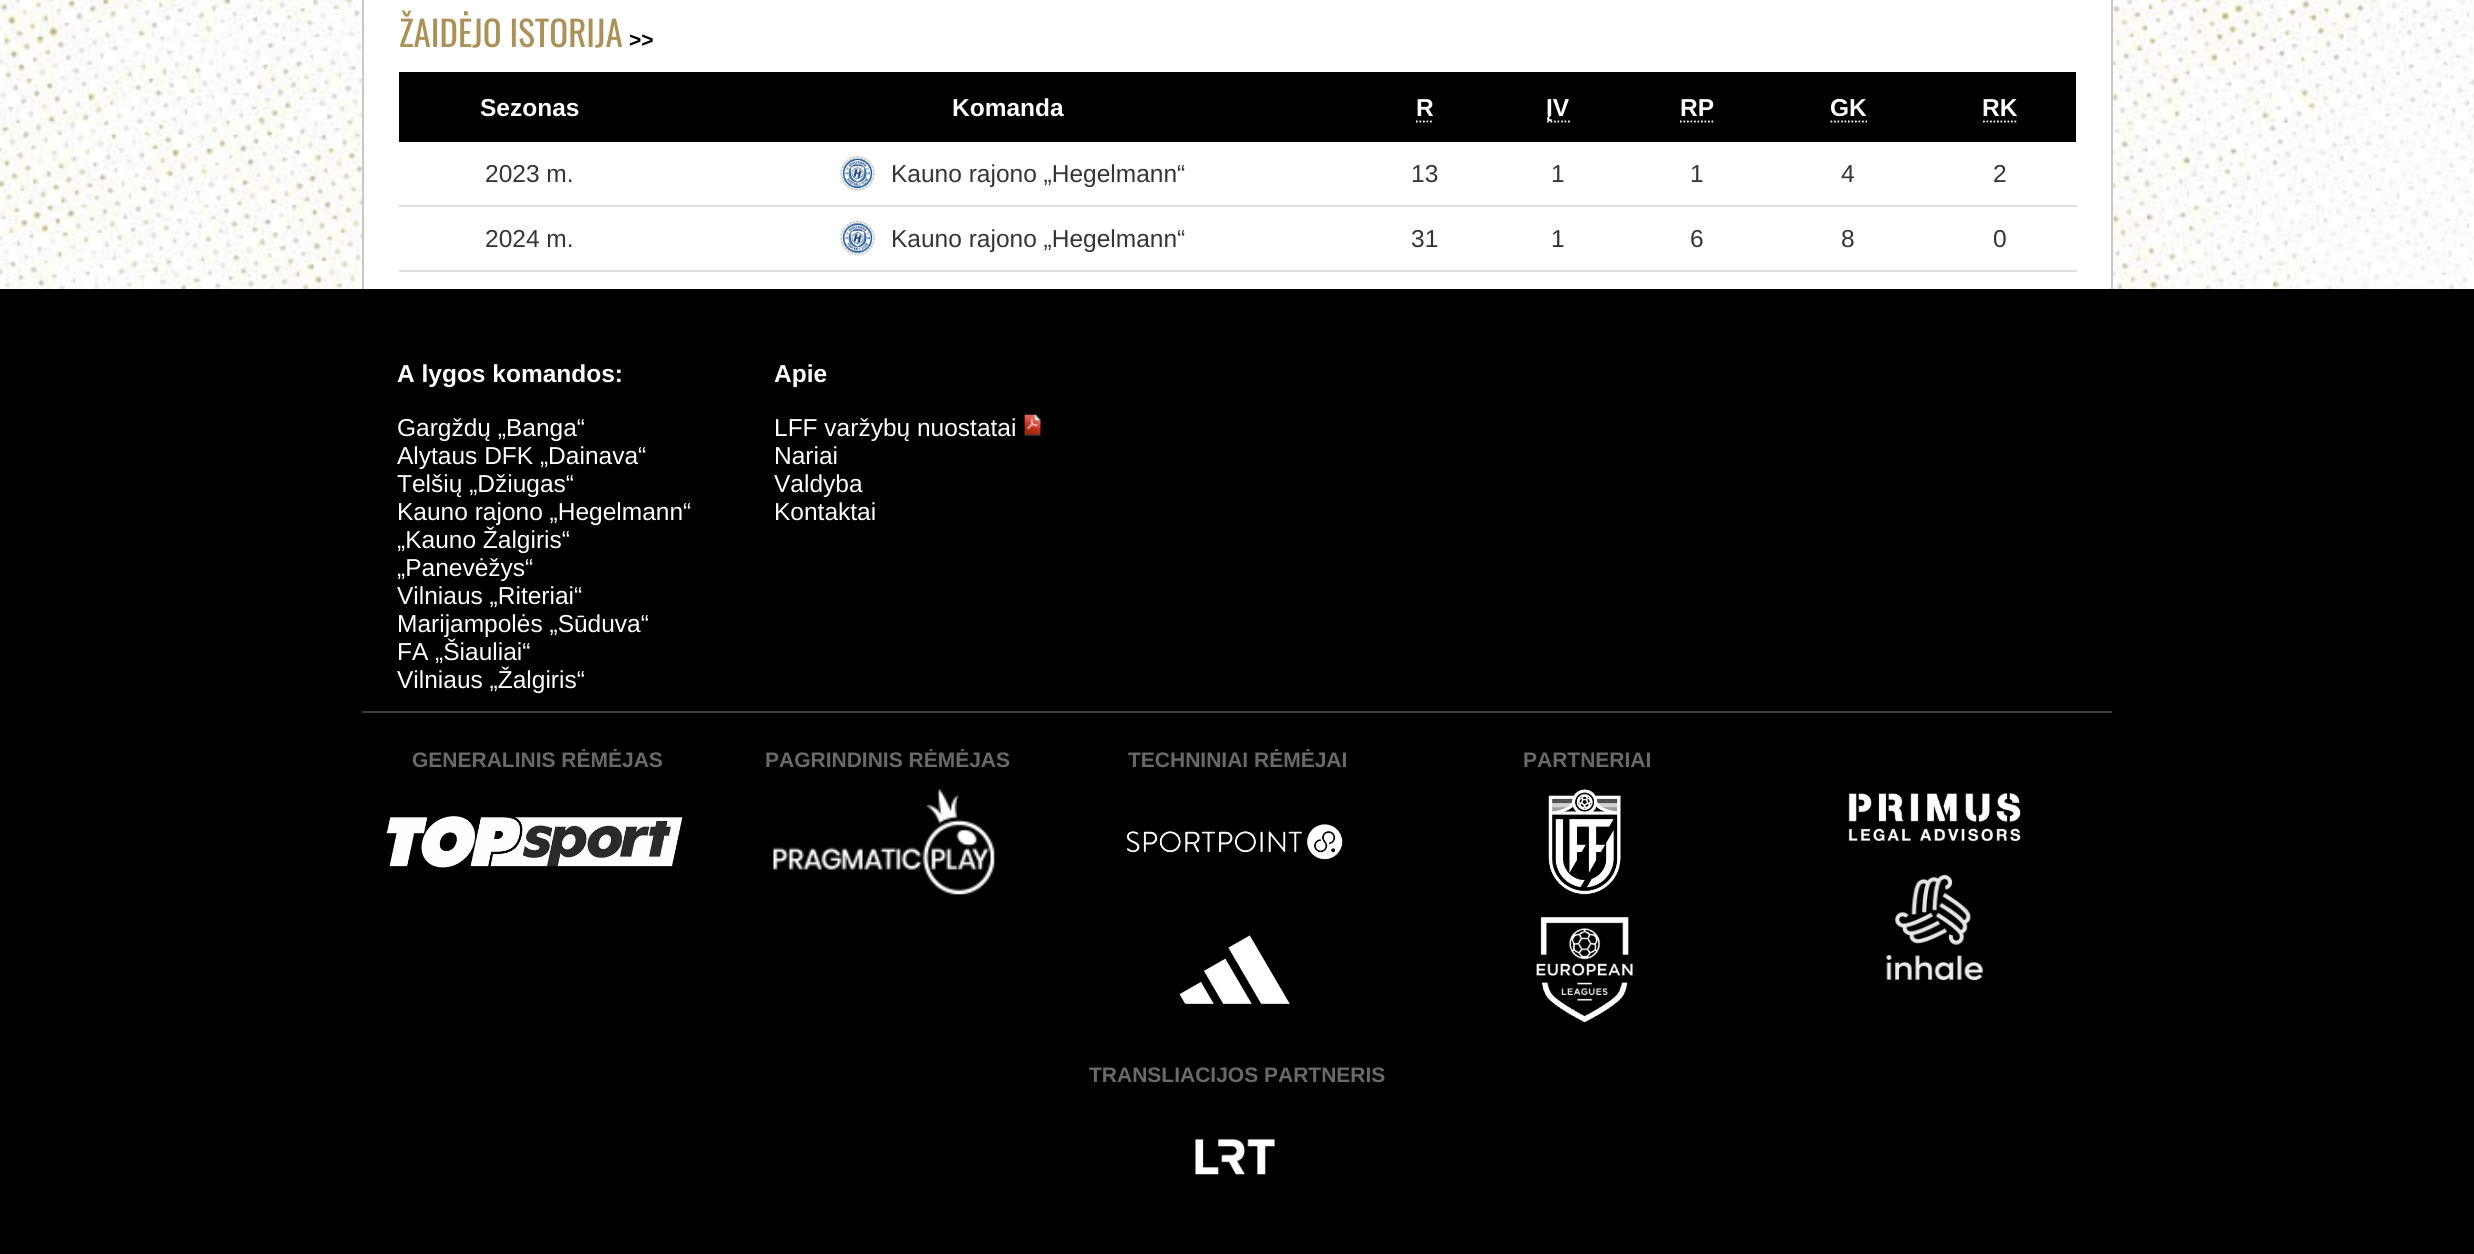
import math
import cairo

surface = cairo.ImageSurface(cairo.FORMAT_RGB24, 2474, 1254)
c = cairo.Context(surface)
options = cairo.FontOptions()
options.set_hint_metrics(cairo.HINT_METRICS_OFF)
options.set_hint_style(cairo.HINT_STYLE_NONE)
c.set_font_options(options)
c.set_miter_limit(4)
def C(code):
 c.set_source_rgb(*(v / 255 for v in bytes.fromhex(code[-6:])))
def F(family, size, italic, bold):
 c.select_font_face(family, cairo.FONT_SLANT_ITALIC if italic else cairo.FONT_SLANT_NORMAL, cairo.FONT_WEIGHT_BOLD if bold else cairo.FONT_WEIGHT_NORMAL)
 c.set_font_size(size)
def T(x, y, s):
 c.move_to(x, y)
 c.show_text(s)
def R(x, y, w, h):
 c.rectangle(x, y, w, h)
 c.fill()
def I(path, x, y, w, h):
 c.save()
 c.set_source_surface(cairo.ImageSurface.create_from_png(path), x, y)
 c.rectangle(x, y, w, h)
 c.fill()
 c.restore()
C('ffffff')
c.paint()
I('1.png',0,0,2474,289)
C('ffffff')
R(364,0,1747,289)
C('c8c8c8')
R(2111,0,2,289)
R(362,0,2,289)
F('Oswald',35,0,0)
C('ac9057')
T(399,47,'ŽAIDĖJO ISTORIJA')
F('Liberation Sans',21,0,1)
C('000000')
T(629,47,'>>')
R(399,72,1677,70)
F('Liberation Sans',24.5,0,1)
C('ffffff')
T(480,116,'Sezonas')
T(952,116,'Komanda')
T(1416,116,'R')
c.new_path()
c.move_to(1416,121.5)
c.line_to(1433,121.5)
c.set_line_width(1.8)
c.set_dash([1.75,1.75])
c.stroke()
c.new_path()
c.move_to(1547,121.5)
c.line_to(1570,121.5)
c.stroke()
T(1546,116,'ĮV')
T(1680,116,'RP')
c.new_path()
c.move_to(1680,121.5)
c.line_to(1715,121.5)
c.stroke()
T(1830,116,'GK')
c.new_path()
c.move_to(1830.5,121.5)
c.line_to(1867,121.5)
c.stroke()
T(1982,116,'RK')
c.new_path()
c.move_to(1983,121.5)
c.line_to(2018,121.5)
c.stroke()
F('Liberation Sans',24.5,0,0)
C('353535')
T(485,182,'2023 m.')
I('2.png',840,155,35,36)
T(891,182,'Kauno rajono „Hegelmann“')
T(1411,182,'13')
T(1551,182,'1')
T(1690,182,'1')
T(1841,182,'4')
C('dfdfe0')
R(399,205,1678,2)
C('353535')
T(1993,182,'2')
T(485,247,'2024 m.')
I('3.png',840,220,35,36)
T(891,247,'Kauno rajono „Hegelmann“')
T(1411,247,'31')
T(1551,247,'1')
T(1690,247,'6')
T(1841,247,'8')
C('dfdfe0')
R(399,270,1678,2)
C('353535')
T(1993,247,'0')
C('000000')
R(0,289,2474,965)
F('Liberation Sans',24.5,0,1)
C('ffffff')
T(397,382,'A lygos komandos:')
F('Liberation Sans',24.5,0,0)
T(397,436,'Gargždų „Banga“')
T(397,464,'Alytaus DFK „Dainava“')
T(397,492,'Telšių „Džiugas“')
T(397,520,'Kauno rajono „Hegelmann“')
T(397,548,'„Kauno Žalgiris“')
T(397,576,'„Panevėžys“')
T(397,604,'Vilniaus „Riteriai“')
T(397,632,'Marijampolės „Sūduva“')
T(397,660,'FA „Šiauliai“')
T(397,688,'Vilniaus „Žalgiris“')
F('Liberation Sans',24.5,0,1)
T(774,382,'Apie')
F('Liberation Sans',24.5,0,0)
T(774,436,'LFF varžybų nuostatai')
I('4.png',1024,414,17,22)
T(774,464,'Nariai')
T(774,492,'Valdyba')
T(774,520,'Kontaktai')
C('3d3d3d')
R(362,711,1750,2)
F('Liberation Sans',21,0,1)
C('696969')
T(412,767,'GENERALINIS RĖMĖJAS')
I('5.png',386,816,297,52)
T(765,767,'PAGRINDINIS RĖMĖJAS')
I('6.png',773,789,222,106)
T(1128,767,'TECHNINIAI RĖMĖJAI')
I('7.png',1127,824,216,36)
I('8.png',1179,935,111,69)
T(1089,1082,'TRANSLIACIJOS PARTNERIS')
I('9.png',1194,1138,81,37)
T(1523,767,'PARTNERIAI')
I('10.png',1548,789,73,106)
I('11.png',1536,917,97,105)
I('12.png',1848,793,173,48)
I('13.png',1886,875,97,105)
surface.write_to_png('o.png')
